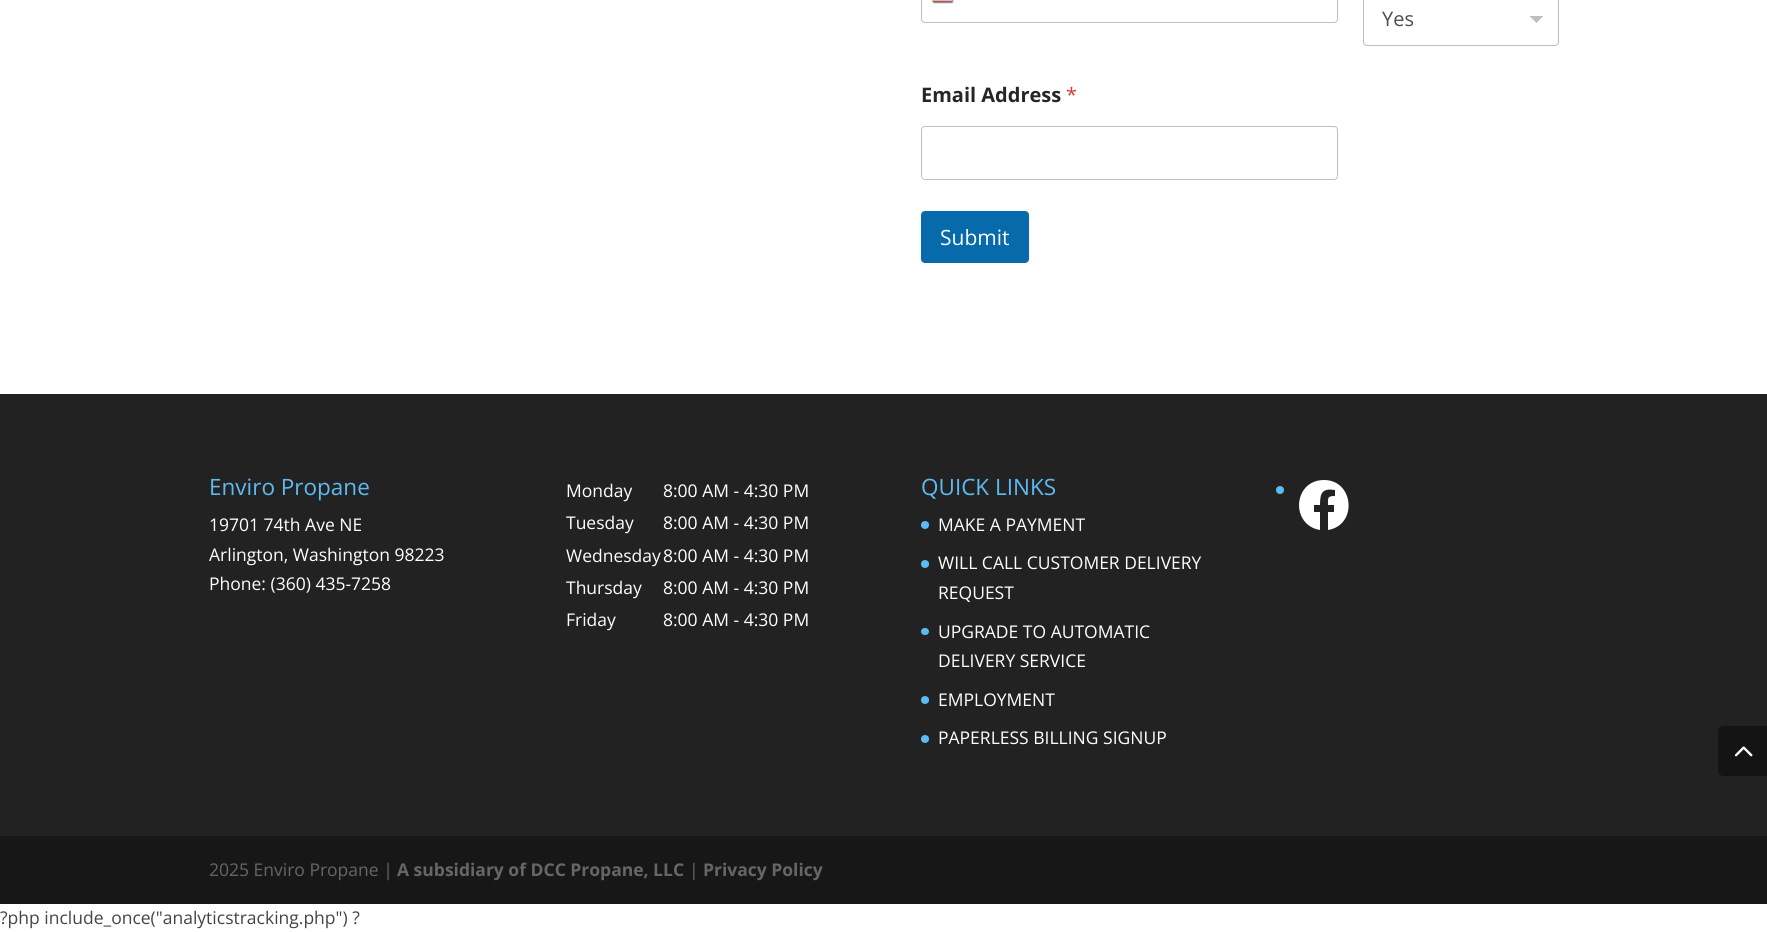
import math
import cairo

surface = cairo.ImageSurface(cairo.FORMAT_RGB24, 1767, 932)
c = cairo.Context(surface)
options = cairo.FontOptions()
options.set_hint_metrics(cairo.HINT_METRICS_OFF)
options.set_hint_style(cairo.HINT_STYLE_NONE)
c.set_font_options(options)
c.set_miter_limit(4)
def C(code):
 c.set_source_rgb(*(v / 255 for v in bytes.fromhex(code[-6:])))
def F(family, size, italic, bold):
 c.select_font_face(family, cairo.FONT_SLANT_ITALIC if italic else cairo.FONT_SLANT_NORMAL, cairo.FONT_WEIGHT_BOLD if bold else cairo.FONT_WEIGHT_NORMAL)
 c.set_font_size(size)
def T(x, y, s):
 c.move_to(x, y)
 c.show_text(s)
def R(x, y, w, h):
 c.rectangle(x, y, w, h)
 c.fill()
def Q(x, y, w, h, r):
 c.new_sub_path()
 for i, (u, v) in enumerate([(x + w - r, y + h - r), (x + r, y + h - r), (x + r, y + r), (x + w - r, y + r)]):
  c.arc(u, v, r, i * math.pi / 2, (i + 1) * math.pi / 2)
 c.close_path()
def S(x, y, w, h, r, blur, alpha):
 c.push_group_with_content(cairo.CONTENT_ALPHA)
 c.set_operator(cairo.OPERATOR_SOURCE)
 for i in range(15, -16, -2):
  e = blur * i / 6
  if min(w, h) + 2 * e > 0:
   c.set_source_rgba(0, 0, 0, alpha * math.erfc((i - 1) / 8.5) / 2)
   Q(x - e, y - e, w + 2 * e, h + 2 * e, max(0, min(r + e + blur * .6, min(w, h) / 2 + e)))
   c.fill()
 c.mask(c.pop_group())
def I(path, x, y, w, h):
 c.save()
 c.set_source_surface(cairo.ImageSurface.create_from_png(path), x, y)
 c.rectangle(x, y, w, h)
 c.fill()
 c.restore()
C('ffffff')
c.paint()
Q(921.5,-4.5,416,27,3.5)
C('bfbfbf')
c.set_line_width(1)
c.stroke()
C('888888')
S(933,-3,20,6,1,.5,1)
I('1.png',932,0,21,2)
gradient = cairo.LinearGradient(1536,16,1543,23)
gradient.add_color_stop_rgba(.5,0.749,0.749,0.749,1)
gradient.add_color_stop_rgba(.5,1,1,1,1)
c.set_source(gradient)
R(1536,16,7,7)
gradient = cairo.LinearGradient(1530,23,1536,16)
gradient.add_color_stop_rgba(.5,1,1,1,1)
gradient.add_color_stop_rgba(.5,0.749,0.749,0.749,1)
c.set_source(gradient)
R(1530,16,6,7)
Q(1363.5,-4.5,195,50,3.5)
C('bfbfbf')
c.stroke()
F('Open Sans',20,0,0)
C('4d4d4d')
T(1382,26,'Yes')
F('Open Sans',20,0,1)
C('262626')
T(921,102,'Email Address')
F('Open Sans',20,0,0)
C('d63637')
T(1066,102,'*')
Q(921.5,126.5,416,53,3.5)
C('bfbfbf')
c.stroke()
C('066aab')
Q(921,211,108,52,4)
c.fill()
F('Open Sans',21,0,0)
C('ffffff')
T(940,245,'Submit')
C('222222')
R(0,394,1767,442)
F('Open Sans',22.5,0,0)
C('5cbbf2')
T(209,495,'Enviro Propane')
F('Open Sans',17.5,0,0)
C('ffffff')
T(209,531,'19701 74th Ave NE')
T(209,561,'Arlington, Washington 98223')
T(209,590,'Phone: (360) 435-7258')
T(566,497,'Monday')
T(663,497,'8:00 AM - 4:30 PM')
T(566,529,'Tuesday')
T(663,529,'8:00 AM - 4:30 PM')
T(566,562,'Wednesday')
T(663,562,'8:00 AM - 4:30 PM')
T(566,594,'Thursday')
T(663,594,'8:00 AM - 4:30 PM')
T(566,626,'Friday')
T(663,626,'8:00 AM - 4:30 PM')
F('Open Sans',22.5,0,0)
C('5cbbf2')
T(921,495,'QUICK LINKS')
c.new_path()
c.arc(925,525,4,0,2 * math.pi)
c.fill()
F('Open Sans',17.5,0,0)
C('ffffff')
T(938,531,'MAKE A PAYMENT')
C('5cbbf2')
c.new_path()
c.arc(925,564,4,0,2 * math.pi)
c.fill()
C('ffffff')
T(938,569,'WILL CALL CUSTOMER DELIVERY')
T(938,599,'REQUEST')
C('5cbbf2')
Q(921,628,8,7,3.5)
c.fill()
C('ffffff')
T(938,638,'UPGRADE TO AUTOMATIC')
T(938,667,'DELIVERY SERVICE')
C('5cbbf2')
c.new_path()
c.arc(925,700,4,0,2 * math.pi)
c.fill()
C('ffffff')
T(938,706,'EMPLOYMENT')
C('5cbbf2')
c.new_path()
c.arc(925,739,4,0,2 * math.pi)
c.fill()
C('ffffff')
T(938,744,'PAPERLESS BILLING SIGNUP')
C('5cbbf2')
c.new_path()
c.arc(1280,490,4,0,2 * math.pi)
c.fill()
C('ffffff')
c.new_path()
c.move_to(1324,480)
c.curve_to(1293,480,1290,525,1320,530)
c.line_to(1320,512)
c.line_to(1314,512)
c.line_to(1314,505)
c.line_to(1320,505)
c.curve_to(1320,493,1322,488,1335,490)
c.line_to(1335,496)
c.curve_to(1327,496,1328,498,1328,505)
c.line_to(1334,505)
c.line_to(1334,512)
c.line_to(1328,512)
c.line_to(1328,530)
c.curve_to(1358,525,1354,480,1324,480)
c.close_path()
c.fill()
C('171717')
R(0,836,1767,68)
C('666666')
T(209,876,'2025 Enviro Propane |')
F('Open Sans',17.5,0,1)
T(397,876,'A subsidiary of DCC Propane, LLC')
F('Open Sans',17.5,0,0)
T(689,876,'|')
F('Open Sans',17.5,0,1)
T(703,876,'Privacy Policy')
C('141414')
c.new_path()
c.move_to(1724,726)
c.line_to(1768,726)
c.line_to(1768,776)
c.line_to(1724,776)
c.curve_to(1720.5,776,1718,773.5,1718,770)
c.line_to(1718,732)
c.curve_to(1718,728.5,1720.5,726,1724,726)
c.close_path()
c.fill()
I('2.png',1734,746,19,11)
F('Open Sans',17.5,0,0)
C('444444')
T(0,924,'?php include_once("analyticstracking.php") ?')
surface.write_to_png('o.png')
